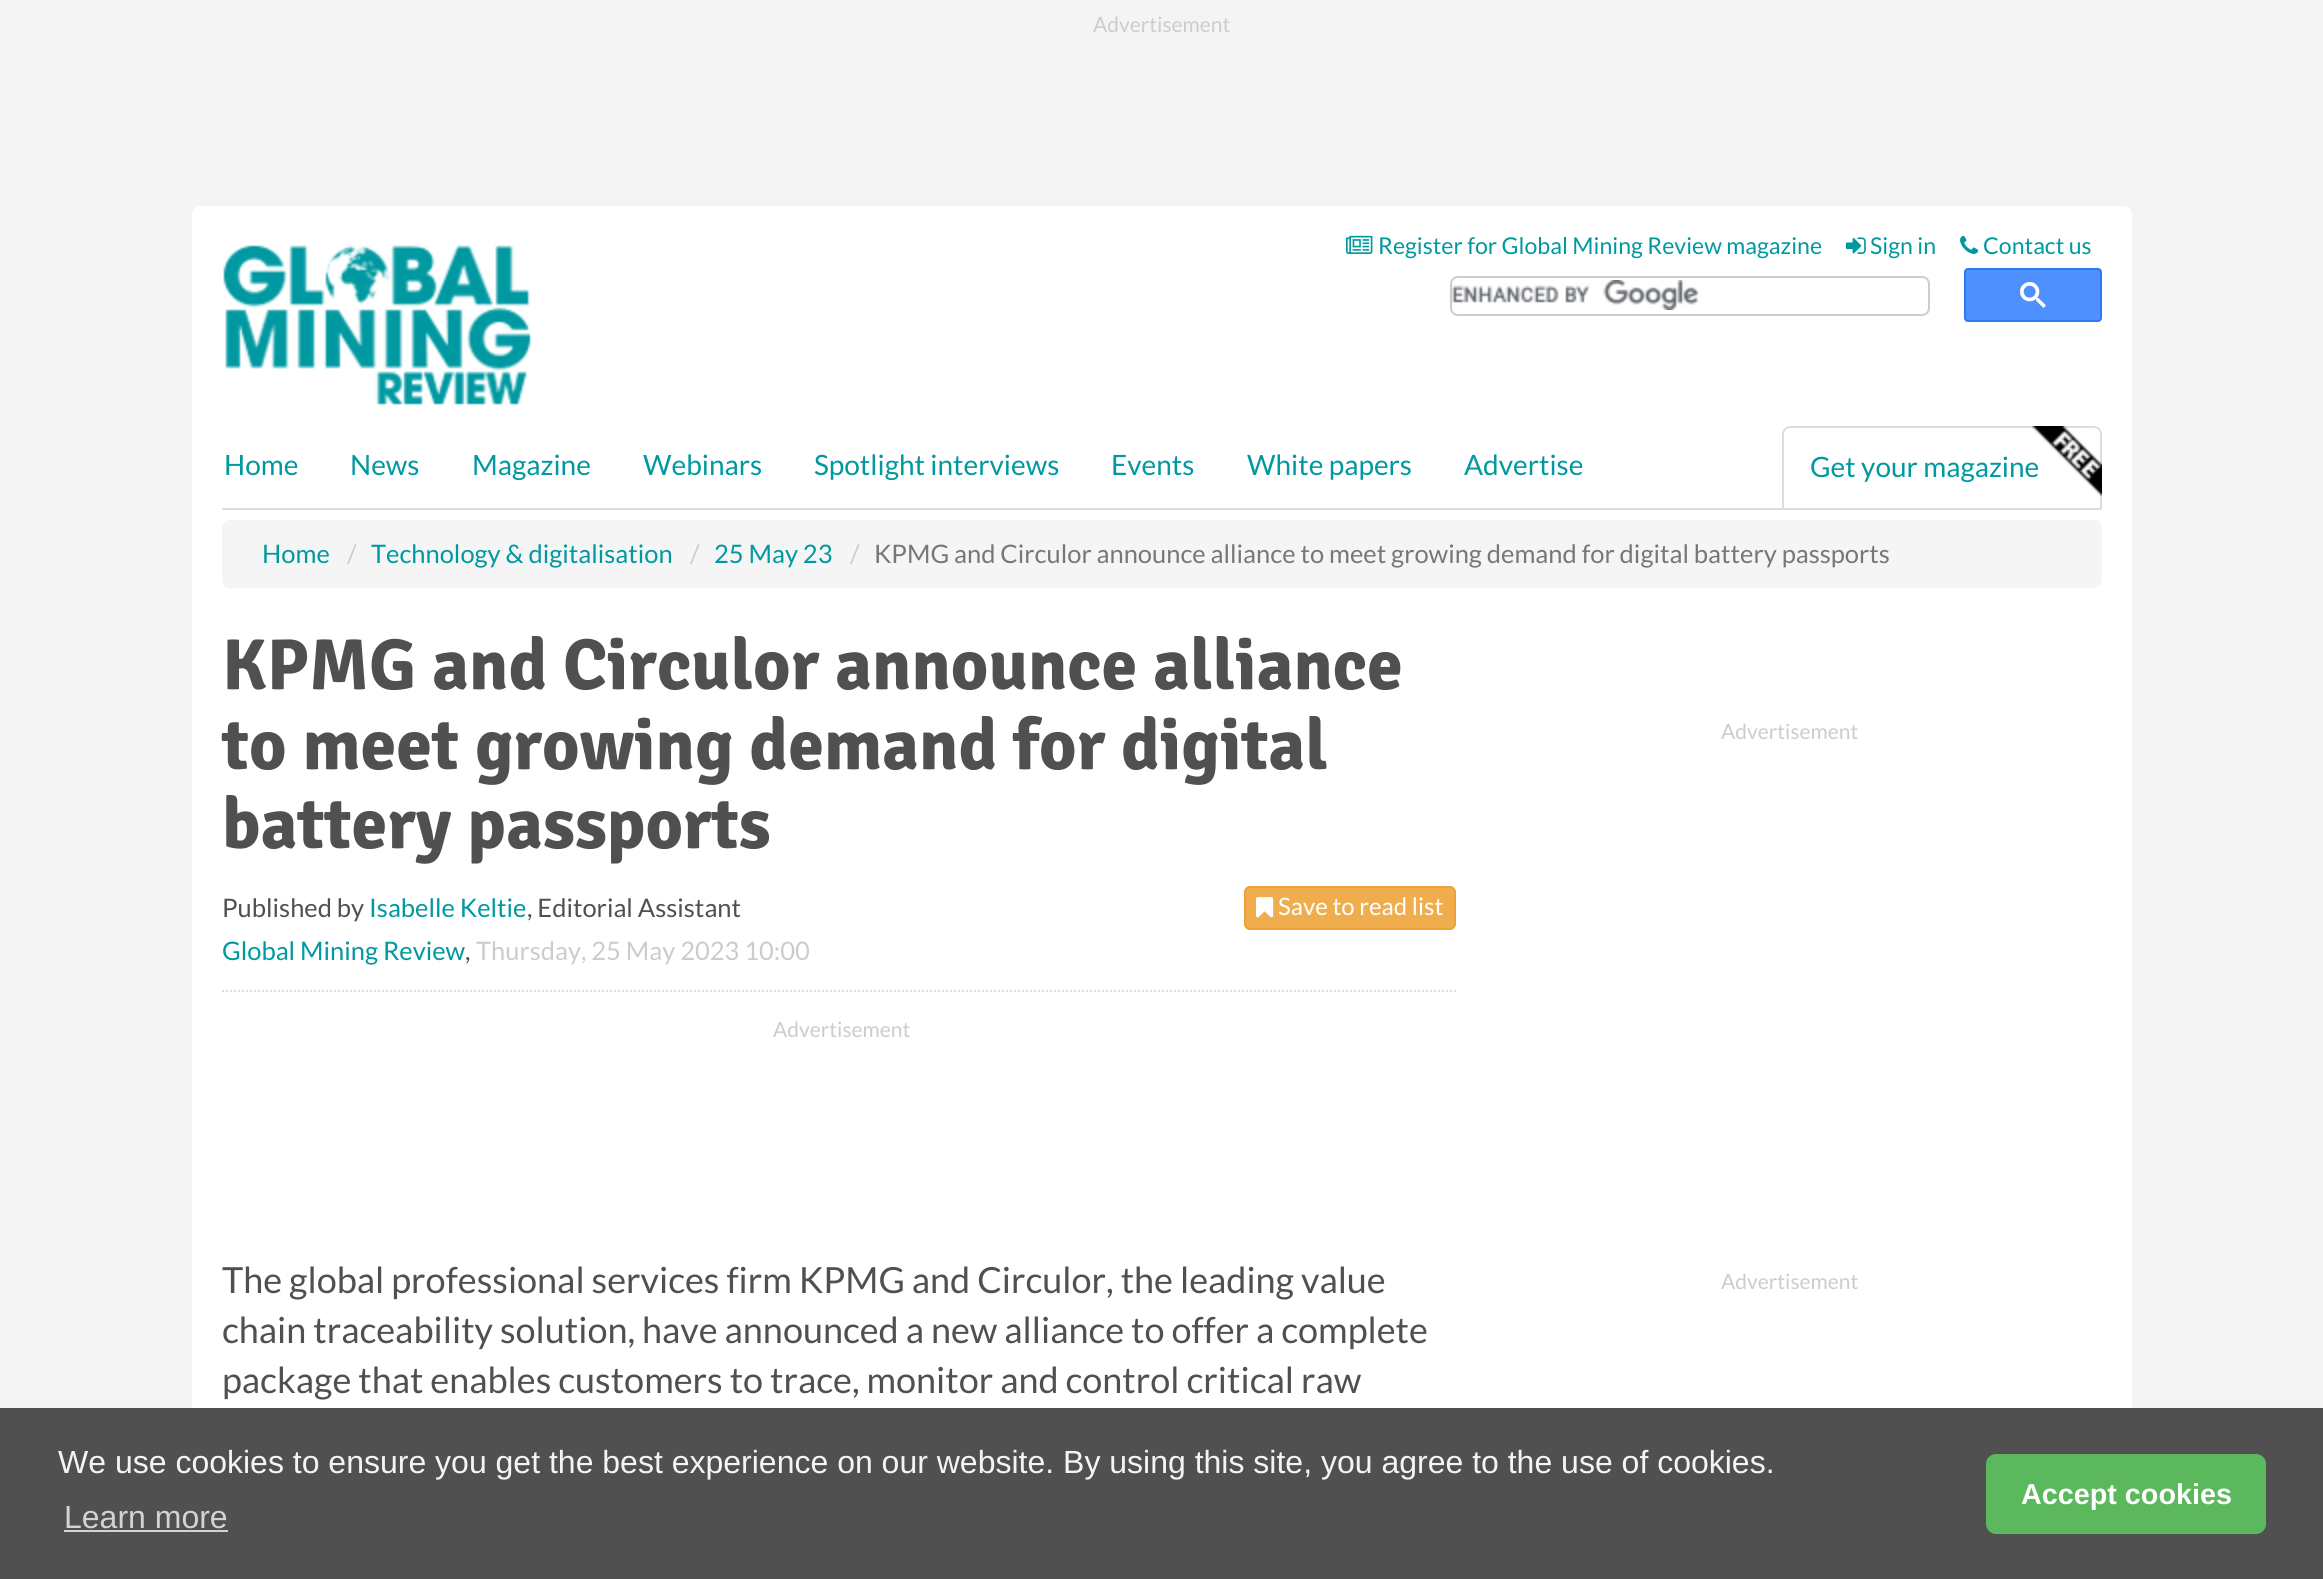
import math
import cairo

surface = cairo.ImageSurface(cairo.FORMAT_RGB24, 2323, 1579)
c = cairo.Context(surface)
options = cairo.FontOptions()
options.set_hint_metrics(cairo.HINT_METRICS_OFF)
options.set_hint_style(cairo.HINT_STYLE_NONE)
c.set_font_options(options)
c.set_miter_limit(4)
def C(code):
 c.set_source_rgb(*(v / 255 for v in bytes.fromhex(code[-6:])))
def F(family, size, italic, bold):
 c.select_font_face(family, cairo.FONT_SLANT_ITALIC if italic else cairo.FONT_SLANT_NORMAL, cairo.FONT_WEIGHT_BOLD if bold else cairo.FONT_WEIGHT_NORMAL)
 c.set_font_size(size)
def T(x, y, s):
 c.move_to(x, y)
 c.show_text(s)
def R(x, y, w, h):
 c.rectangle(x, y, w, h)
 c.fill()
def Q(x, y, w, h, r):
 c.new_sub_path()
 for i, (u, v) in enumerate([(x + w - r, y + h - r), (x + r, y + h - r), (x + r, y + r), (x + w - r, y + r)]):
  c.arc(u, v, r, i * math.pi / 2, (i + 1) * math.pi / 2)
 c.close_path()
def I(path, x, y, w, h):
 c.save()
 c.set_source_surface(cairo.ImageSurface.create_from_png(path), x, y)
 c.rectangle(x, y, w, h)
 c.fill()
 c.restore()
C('f4f4f4')
c.paint()
F('Lato',21,0,0)
C('cccccc')
T(1093,32,'Advertisement')
C('ffffff')
Q(192,206,1940,78,8)
c.fill()
I('1.png',1346,235,27,19)
F('Lato',23.1,0,0)
C('0099a0')
T(1378,254,'Register for Global Mining Review magazine')
I('2.png',1846,237,20,17)
T(1870,254,'Sign in')
I('3.png',1960,235,19,19)
T(1983,254,'Contact us')
C('ffffff')
R(192,278,1940,148)
I('4.png',223,245,308,160)
I('5.png',1452,280,246,30)
Q(1451,277,478,38,7)
C('cccccc')
c.stroke()
C('4d90fe')
Q(1965,269,136,52,3)
c.fill_preserve()
C('3079ed')
c.stroke()
I('6.png',2020,282,26,26)
C('ffffff')
R(192,426,1940,202)
C('dddddd')
R(222,508,1880,2)
F('Lato',28,0,0)
C('0099a0')
T(224,475,'Home')
T(350,475,'News')
T(472,475,'Magazine')
T(643,475,'Webinars')
T(814,475,'Spotlight interviews')
T(1111,475,'Events')
T(1247,475,'White papers')
T(1464,475,'Advertise')
C('dddddd')
c.set_fill_rule(cairo.FILL_RULE_EVEN_ODD)
c.new_path()
c.move_to(1790,426)
c.line_to(2094,426)
c.curve_to(2098,426,2102,430,2102,434)
c.line_to(2102,508)
c.line_to(1782,508)
c.line_to(1782,434)
c.curve_to(1782,430,1786,426,1790,426)
c.close_path()
c.move_to(1790,428)
c.line_to(2094,428)
c.curve_to(2097,428,2100,431,2100,434)
c.line_to(2100,508)
c.line_to(1784,508)
c.line_to(1784,434)
c.curve_to(1784,431,1787,428,1790,428)
c.close_path()
c.fill()
C('0099a0')
T(1810,477,'Get your magazine')
I('7.png',2032,426,70,70)
C('f5f5f5')
Q(222,520,1880,68,8)
c.fill()
F('Lato',25.5,0,0)
C('0099a0')
T(262,563,'Home')
C('cccccc')
T(347,563,'/')
C('0099a0')
T(371,563,'Technology & digitalisation')
C('cccccc')
T(690,563,'/')
C('0099a0')
T(714,563,'25 May 23')
C('cccccc')
T(850,563,'/')
C('777777')
T(874,563,'KPMG and Circulor announce alliance to meet growing demand for digital battery passports')
C('ffffff')
Q(192,620,1940,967,8)
c.fill()
F('Signika',72,0,1)
C('505050')
T(222,689,'KPMG and Circulor announce alliance')
T(222,769,'to meet growing demand for digital')
T(222,848,'battery passports')
F('Lato',25.5,0,0)
T(222,917,'Published by')
C('0099a0')
T(369,917,'Isabelle Keltie')
C('505050')
T(527,917,', Editorial Assistant')
C('f0ad4e')
Q(1245,887,210,42,5)
c.fill_preserve()
C('eea236')
c.stroke()
I('8.png',1256,897,18,21)
F('Lato',24,0,0)
C('ffffff')
T(1278,915,'Save to read list')
F('Lato',25.5,0,0)
C('0099a0')
T(222,960,'Global Mining Review')
C('505050')
T(465,960,',')
C('cccccc')
T(476,960,'Thursday, 25 May 2023 10:00')
c.new_path()
c.move_to(222,991)
c.line_to(1456,991)
C('dddddd')
c.set_dash([2,2])
c.stroke()
F('Lato',21,0,0)
C('cccccc')
T(773,1037,'Advertisement')
F('Lato',36,0,0)
C('505050')
T(222,1293,'The global professional services firm KPMG and Circulor, the leading value')
T(222,1343,'chain traceability solution, have announced a new alliance to offer a complete')
T(222,1393,'package that enables customers to trace, monitor and control critical raw')
F('Lato',21,0,0)
C('cccccc')
T(1721,739,'Advertisement')
T(1721,1289,'Advertisement')
C('505050')
R(0,1408,2323,171)
F('Liberation Sans',32,0,0)
C('f4f4f4')
T(58,1473,'We use cookies to ensure you get the best experience on our website. By using this site, you agree to the use of cookies.')
C('d3d3d3')
T(64,1528,'Learn more')
R(64,1530,164,2)
C('5cb85c')
Q(1986,1454,280,80,10)
c.fill()
F('Liberation Sans',28.75,0,1)
C('ffffff')
T(2021,1504,'Accept cookies')
surface.write_to_png('o.png')
